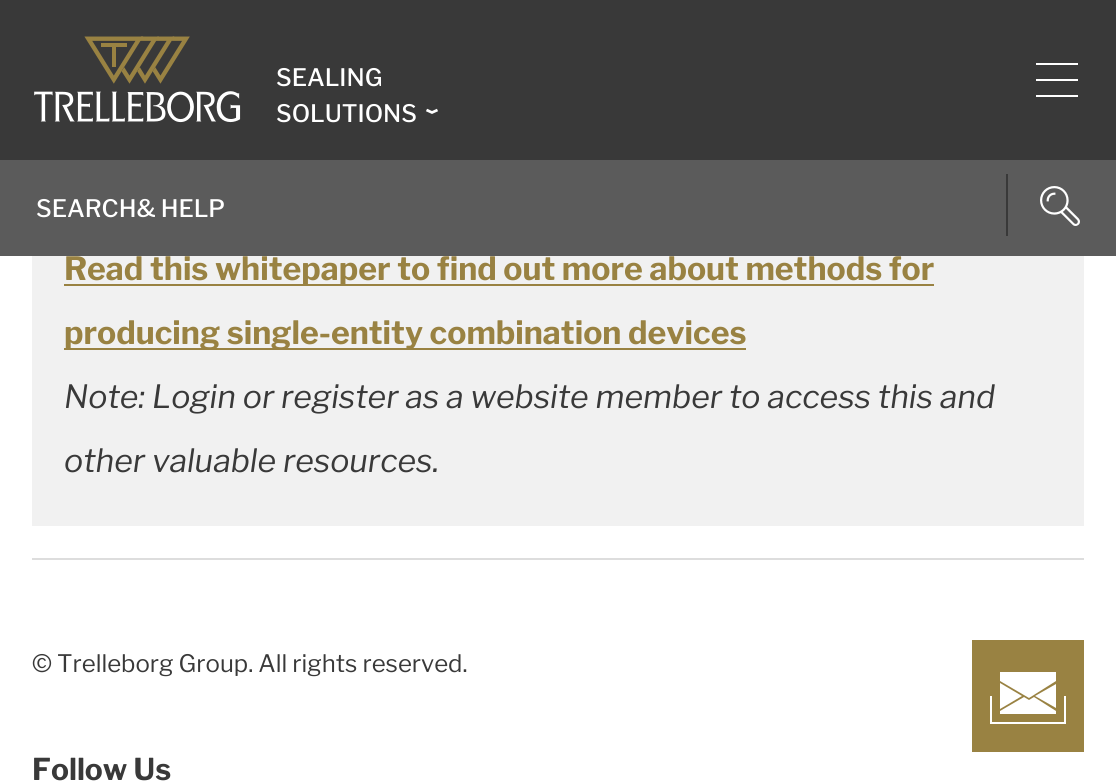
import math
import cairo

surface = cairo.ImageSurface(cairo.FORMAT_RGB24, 1116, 783)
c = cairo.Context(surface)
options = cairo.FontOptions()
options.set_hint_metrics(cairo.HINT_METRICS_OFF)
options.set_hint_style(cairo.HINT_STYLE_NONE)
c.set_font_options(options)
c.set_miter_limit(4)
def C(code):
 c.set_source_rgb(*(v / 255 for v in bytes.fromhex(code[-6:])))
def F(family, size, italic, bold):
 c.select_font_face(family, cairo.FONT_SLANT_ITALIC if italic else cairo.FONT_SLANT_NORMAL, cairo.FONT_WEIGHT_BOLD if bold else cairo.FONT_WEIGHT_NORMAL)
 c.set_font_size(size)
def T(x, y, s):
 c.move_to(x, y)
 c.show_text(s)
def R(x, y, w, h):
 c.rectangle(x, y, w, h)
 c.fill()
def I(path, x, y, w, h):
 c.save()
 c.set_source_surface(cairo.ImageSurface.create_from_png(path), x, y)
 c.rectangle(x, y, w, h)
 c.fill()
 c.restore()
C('ffffff')
c.paint()
C('393939')
R(0,0,1116,160)
I('1.png',34,36,207,87)
F('Libre Franklin Medium',24,0,0)
C('ffffff')
T(276,86,'SEALING')
T(276,122,'SOLUTIONS')
c.new_path()
c.move_to(437.5,110)
c.line_to(432,112.5)
c.line_to(426.5,110)
c.set_line_width(2.7)
c.stroke()
c.new_path()
c.move_to(1078,65)
c.line_to(1036,65)
c.line_to(1036,63)
c.line_to(1078,63)
c.close_path()
c.move_to(1078,79)
c.line_to(1036,79)
c.line_to(1036,81)
c.line_to(1078,81)
c.close_path()
c.move_to(1078,95)
c.line_to(1036,95)
c.line_to(1036,97)
c.line_to(1078,97)
c.close_path()
c.fill()
C('5b5b5b')
R(0,160,1116,96)
C('ffffff')
T(36,217,'SEARCH& HELP')
C('393939')
R(1006,174,2,62)
I('2.png',1040,186,40,40)
C('998242')
R(972,640,112,112)
C('ffffff')
c.set_fill_rule(cairo.FILL_RULE_EVEN_ODD)
c.new_path()
c.move_to(1000,672)
c.line_to(1056,672)
c.line_to(1056,681)
c.line_to(1029,698)
c.line_to(1000,681)
c.close_path()
c.move_to(1035,696)
c.line_to(1056,684)
c.line_to(1056,708)
c.close_path()
c.move_to(1034,697)
c.line_to(1056,711)
c.line_to(1056,714)
c.line_to(1000,714)
c.line_to(1000,711)
c.line_to(1024,697)
c.line_to(1029,700)
c.close_path()
c.move_to(1022,696)
c.line_to(1000,709)
c.line_to(1000,683)
c.close_path()
c.move_to(990,722)
c.line_to(990,696)
c.line_to(992,696)
c.line_to(992,722)
c.line_to(1064,722)
c.line_to(1064,696)
c.line_to(1066,696)
c.line_to(1066,724)
c.line_to(990,724)
c.close_path()
c.fill()
C('f1f1f1')
R(32,256,1052,270)
C('998242')
R(64,284,870,2)
F('Libre Franklin',32,0,1)
T(64,280,'Read this whitepaper to find out more about methods for')
R(64,348,682,2)
T(64,344,'producing single-entity combination devices')
F('Libre Franklin',32,1,0)
C('393939')
T(64,408,'Note: Login or register as a website member to access this and')
T(64,472,'other valuable resources.')
C('dddddd')
R(32,558,1052,2)
F('Libre Franklin',24,0,0)
C('393939')
T(32,672,'© Trelleborg Group. All rights reserved.')
F('Libre Franklin',30,0,1)
T(32,780,'Follow Us')
surface.write_to_png('o.png')
